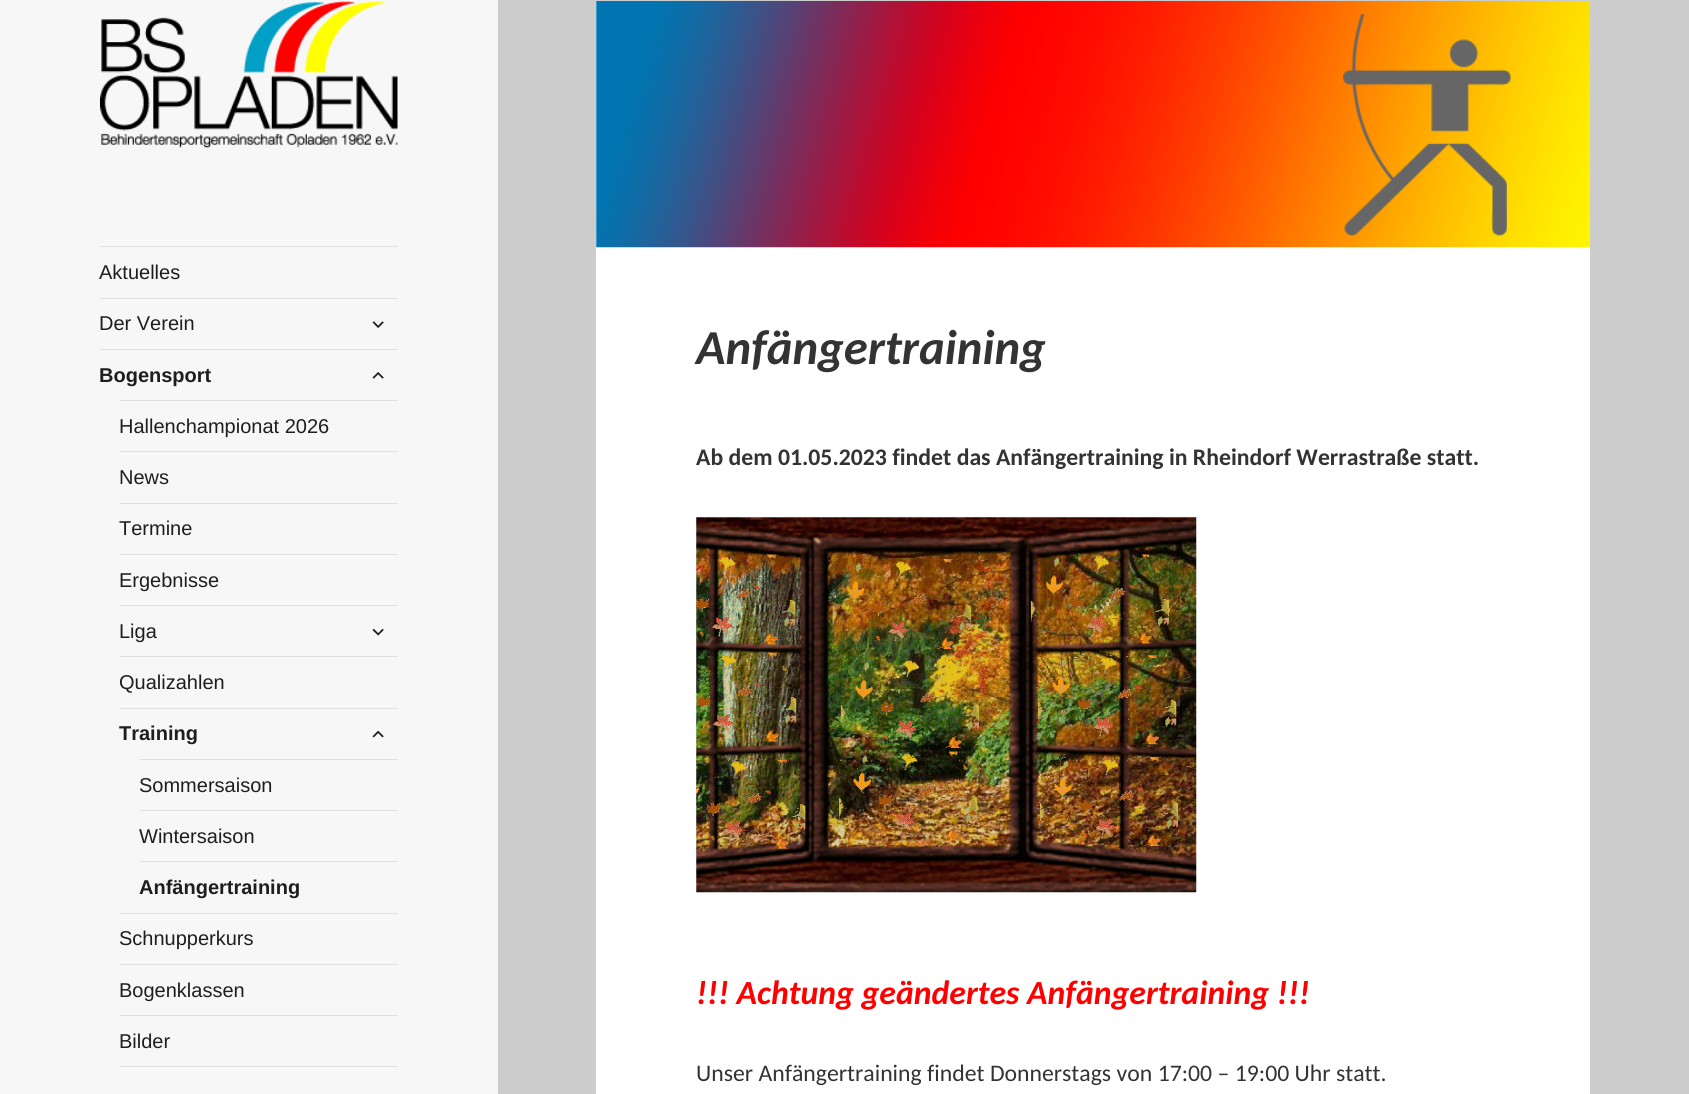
import math
import cairo

surface = cairo.ImageSurface(cairo.FORMAT_RGB24, 1689, 1094)
c = cairo.Context(surface)
options = cairo.FontOptions()
options.set_hint_metrics(cairo.HINT_METRICS_OFF)
options.set_hint_style(cairo.HINT_STYLE_NONE)
c.set_font_options(options)
c.set_miter_limit(4)
def C(code):
 c.set_source_rgb(*(v / 255 for v in bytes.fromhex(code[-6:])))
def F(family, size, italic, bold):
 c.select_font_face(family, cairo.FONT_SLANT_ITALIC if italic else cairo.FONT_SLANT_NORMAL, cairo.FONT_WEIGHT_BOLD if bold else cairo.FONT_WEIGHT_NORMAL)
 c.set_font_size(size)
def T(x, y, s):
 c.move_to(x, y)
 c.show_text(s)
def R(x, y, w, h):
 c.rectangle(x, y, w, h)
 c.fill()
def I(path, x, y, w, h):
 c.save()
 c.set_source_surface(cairo.ImageSurface.create_from_png(path), x, y)
 c.rectangle(x, y, w, h)
 c.fill()
 c.restore()
C('cccccc')
c.paint()
C('f7f7f7')
R(0,0,498,1094)
I('1.png',100,1,298,147)
C('e1e1e1')
R(100,246,298,1)
F('Liberation Sans',20,0,0)
C('1e1e1e')
T(99,279,'Aktuelles')
C('e1e1e1')
R(100,298,298,1)
C('1e1e1e')
T(99,330,'Der Verein')
I('2.png',372,321,12,7)
C('e1e1e1')
R(100,349,298,1)
F('Liberation Sans',20,0,1)
C('1e1e1e')
T(99,382,'Bogensport')
I('3.png',372,372,12,7)
C('e1e1e1')
R(120,400,278,1)
F('Liberation Sans',20,0,0)
C('1e1e1e')
T(119,433,'Hallenchampionat 2026')
C('e1e1e1')
R(120,451,278,1)
C('1e1e1e')
T(119,484,'News')
C('e1e1e1')
R(120,503,278,1)
C('1e1e1e')
T(119,535,'Termine')
C('e1e1e1')
R(120,554,278,1)
C('1e1e1e')
T(119,587,'Ergebnisse')
C('e1e1e1')
R(120,605,278,1)
C('1e1e1e')
T(119,638,'Liga')
I('4.png',372,628,12,8)
C('e1e1e1')
R(120,656,278,1)
C('1e1e1e')
T(119,689,'Qualizahlen')
C('e1e1e1')
R(120,708,278,1)
F('Liberation Sans',20,0,1)
C('1e1e1e')
T(119,740,'Training')
I('5.png',372,730,12,8)
C('e1e1e1')
R(140,759,258,1)
F('Liberation Sans',20,0,0)
C('1e1e1e')
T(139,792,'Sommersaison')
C('e1e1e1')
R(140,810,258,1)
C('1e1e1e')
T(139,843,'Wintersaison')
C('e1e1e1')
R(140,861,258,1)
F('Liberation Sans',20,0,1)
C('1e1e1e')
T(139,894,'Anfängertraining')
C('e1e1e1')
R(120,913,278,1)
F('Liberation Sans',20,0,0)
C('1e1e1e')
T(119,945,'Schnupperkurs')
C('e1e1e1')
R(120,964,278,1)
C('1e1e1e')
T(119,997,'Bogenklassen')
C('e1e1e1')
R(120,1015,278,1)
C('1e1e1e')
T(119,1048,'Bilder')
C('e1e1e1')
R(120,1066,278,1)
C('ffffff')
R(596,1,994,1093)
I('6.png',596,1,994,247)
F('Carlito',48.75,1,1)
C('333333')
T(696,364,'Anfängertraining')
F('Carlito',23.75,0,1)
T(696,465,'Ab dem 01.05.2023 findet das Anfängertraining in Rheindorf Werrastraße statt.')
I('7.png',696,517,501,376)
F('Carlito',33.75,1,1)
C('ff0000')
T(696,1004,'!!! Achtung geändertes Anfängertraining !!!')
F('Carlito',23.75,0,0)
C('333333')
T(696,1081,'Unser Anfängertraining findet Donnerstags von 17:00 – 19:00 Uhr statt.')
surface.write_to_png('o.png')
